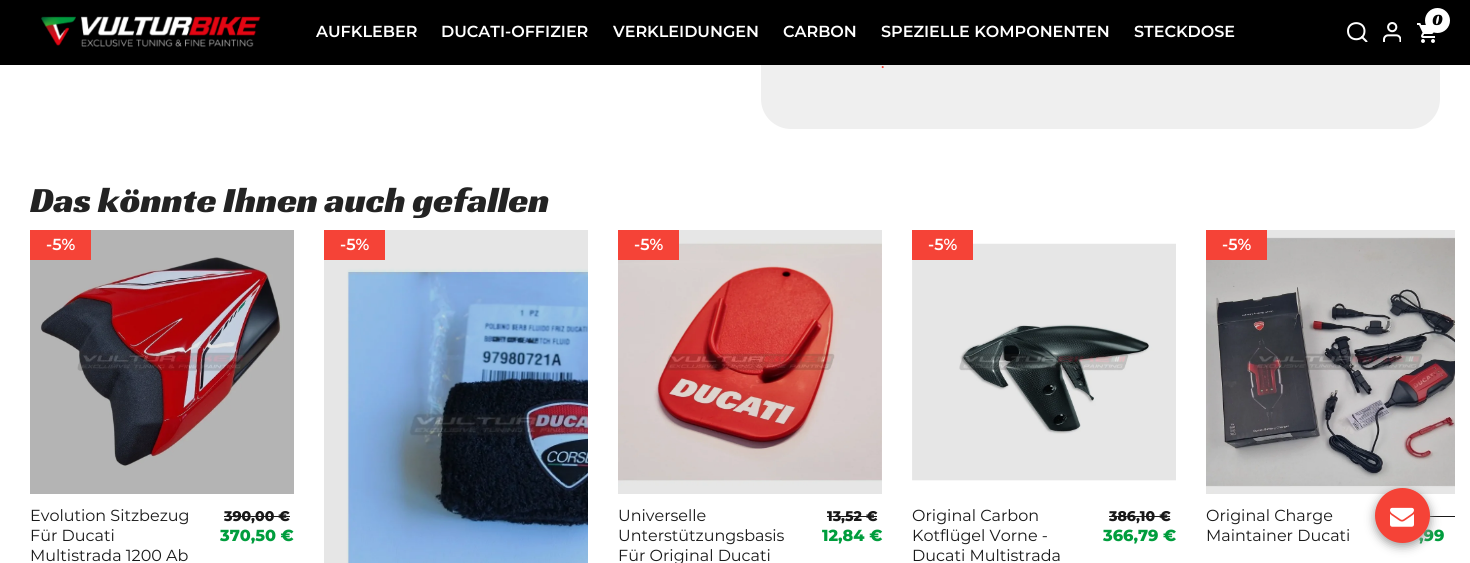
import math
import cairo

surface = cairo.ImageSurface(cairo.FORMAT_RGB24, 1470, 563)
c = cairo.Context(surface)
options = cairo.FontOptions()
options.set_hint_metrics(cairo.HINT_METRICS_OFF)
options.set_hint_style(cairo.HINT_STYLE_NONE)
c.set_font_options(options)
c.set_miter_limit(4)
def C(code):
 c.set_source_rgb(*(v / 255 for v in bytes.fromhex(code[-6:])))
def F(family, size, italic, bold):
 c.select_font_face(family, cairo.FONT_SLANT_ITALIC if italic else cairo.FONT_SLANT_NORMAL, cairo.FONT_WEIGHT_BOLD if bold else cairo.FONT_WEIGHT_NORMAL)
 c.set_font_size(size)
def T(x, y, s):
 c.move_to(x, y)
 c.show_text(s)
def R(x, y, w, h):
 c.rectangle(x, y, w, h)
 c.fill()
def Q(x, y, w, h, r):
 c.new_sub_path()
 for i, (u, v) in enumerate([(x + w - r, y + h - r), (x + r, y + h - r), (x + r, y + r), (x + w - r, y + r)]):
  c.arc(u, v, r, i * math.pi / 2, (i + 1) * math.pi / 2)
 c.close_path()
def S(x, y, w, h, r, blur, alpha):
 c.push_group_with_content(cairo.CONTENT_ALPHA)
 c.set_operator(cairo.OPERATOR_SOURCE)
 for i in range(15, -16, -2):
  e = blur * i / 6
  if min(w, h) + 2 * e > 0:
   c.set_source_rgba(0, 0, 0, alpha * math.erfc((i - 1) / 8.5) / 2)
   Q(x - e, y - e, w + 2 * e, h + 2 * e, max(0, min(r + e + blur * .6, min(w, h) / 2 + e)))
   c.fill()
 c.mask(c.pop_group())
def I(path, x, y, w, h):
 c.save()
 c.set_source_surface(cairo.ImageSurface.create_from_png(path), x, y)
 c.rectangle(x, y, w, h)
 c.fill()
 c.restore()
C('ffffff')
c.paint()
C('efefef')
Q(761,-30,679,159,30)
c.fill()
C('000000')
R(0,0,1470,65)
I('1.png',41,16,220,31)
F('Montserrat SemiBold',16,0,0)
C('ffffff')
T(316,37,'AUFKLEBER')
T(441,37,'DUCATI-OFFIZIER')
T(613,37,'VERKLEIDUNGEN')
T(783,37,'CARBON')
T(881,37,'SPEZIELLE KOMPONENTEN')
T(1134,37,'STECKDOSE')
I('2.png',1417,23,18,20)
c.arc(1437.5,20.5,12.5,0,2 * math.pi)
c.fill()
F('Racing Sans One',16,0,0)
C('000000')
T(1432,25,'0')
c.new_path()
c.move_to(1364.5,31)
c.curve_to(1364.5,42,1348,42,1348,31)
c.curve_to(1348,20.5,1364.5,20.5,1364.5,31)
c.close_path()
C('ffffff')
c.set_line_cap(cairo.LINE_CAP_ROUND)
c.set_line_join(cairo.LINE_JOIN_ROUND)
c.stroke()
c.save()
c.rectangle(1347,22,21,20)
c.clip()
c.new_path()
c.move_to(1366.5,41.5)
c.line_to(1362,37)
c.stroke()
c.restore()
I('3.png',1383,22,18,20)
F('Montserrat Medium',15,0,0)
C('f54337')
T(881,68,'.')
F('Racing Sans One',36,0,0)
C('232323')
T(30,212,'Das könnte Ihnen auch gefallen')
I('4.png',30,230,264,264)
C('f54337')
R(30,230,61,30)
F('Montserrat SemiBold',16,0,0)
C('ffffff')
T(46,250,'-5%')
F('Montserrat',16,0,0)
C('191919')
T(30,521,'Evolution Sitzbezug')
T(30,541,'Für Ducati')
T(30,561,'Multistrada 1200 Ab')
F('Montserrat ExtraBold',14,0,0)
T(224,521,'390,00 €')
R(224,516,66,1)
F('Montserrat ExtraBold',16,0,0)
C('009d3d')
T(220,541,'370,50 €')
I('5.png',324,230,264,333)
C('f54337')
R(324,230,61,30)
F('Montserrat SemiBold',16,0,0)
C('ffffff')
T(340,250,'-5%')
I('6.png',618,230,264,264)
C('f54337')
R(618,230,61,30)
C('ffffff')
T(634,250,'-5%')
F('Montserrat',16,0,0)
C('191919')
T(618,521,'Universelle')
T(618,541,'Unterstützungsbasis')
T(618,561,'Für Original Ducati')
F('Montserrat ExtraBold',14,0,0)
T(827,521,'13,52 €')
R(827,516,50,1)
F('Montserrat ExtraBold',16,0,0)
C('009d3d')
T(822,541,'12,84 €')
I('7.png',912,243,264,238)
C('f54337')
R(912,230,61,30)
F('Montserrat SemiBold',16,0,0)
C('ffffff')
T(928,250,'-5%')
F('Montserrat',16,0,0)
C('191919')
T(912,521,'Original Carbon')
T(912,541,'Kotflügel Vorne -')
T(912,561,'Ducati Multistrada')
F('Montserrat ExtraBold',14,0,0)
T(1109,521,'386,10 €')
R(1109,516,61,1)
F('Montserrat ExtraBold',16,0,0)
C('009d3d')
T(1103,541,'366,79 €')
I('8.png',1206,230,249,264)
C('f54337')
R(1206,230,61,30)
F('Montserrat SemiBold',16,0,0)
C('ffffff')
T(1222,250,'-5%')
F('Montserrat',16,0,0)
C('191919')
T(1206,521,'Original Charge')
T(1206,541,'Maintainer Ducati')
R(1429,516,26,1)
F('Montserrat ExtraBold',16,0,0)
C('009d3d')
T(1419,541,',99')
C('999999')
S(1375,491,55,55,27.5,5,1)
C('f54337')
c.arc(1402.5,515.5,27.5,0,2 * math.pi)
c.fill()
I('9.png',1390,507,24,20)
surface.write_to_png('o.png')
